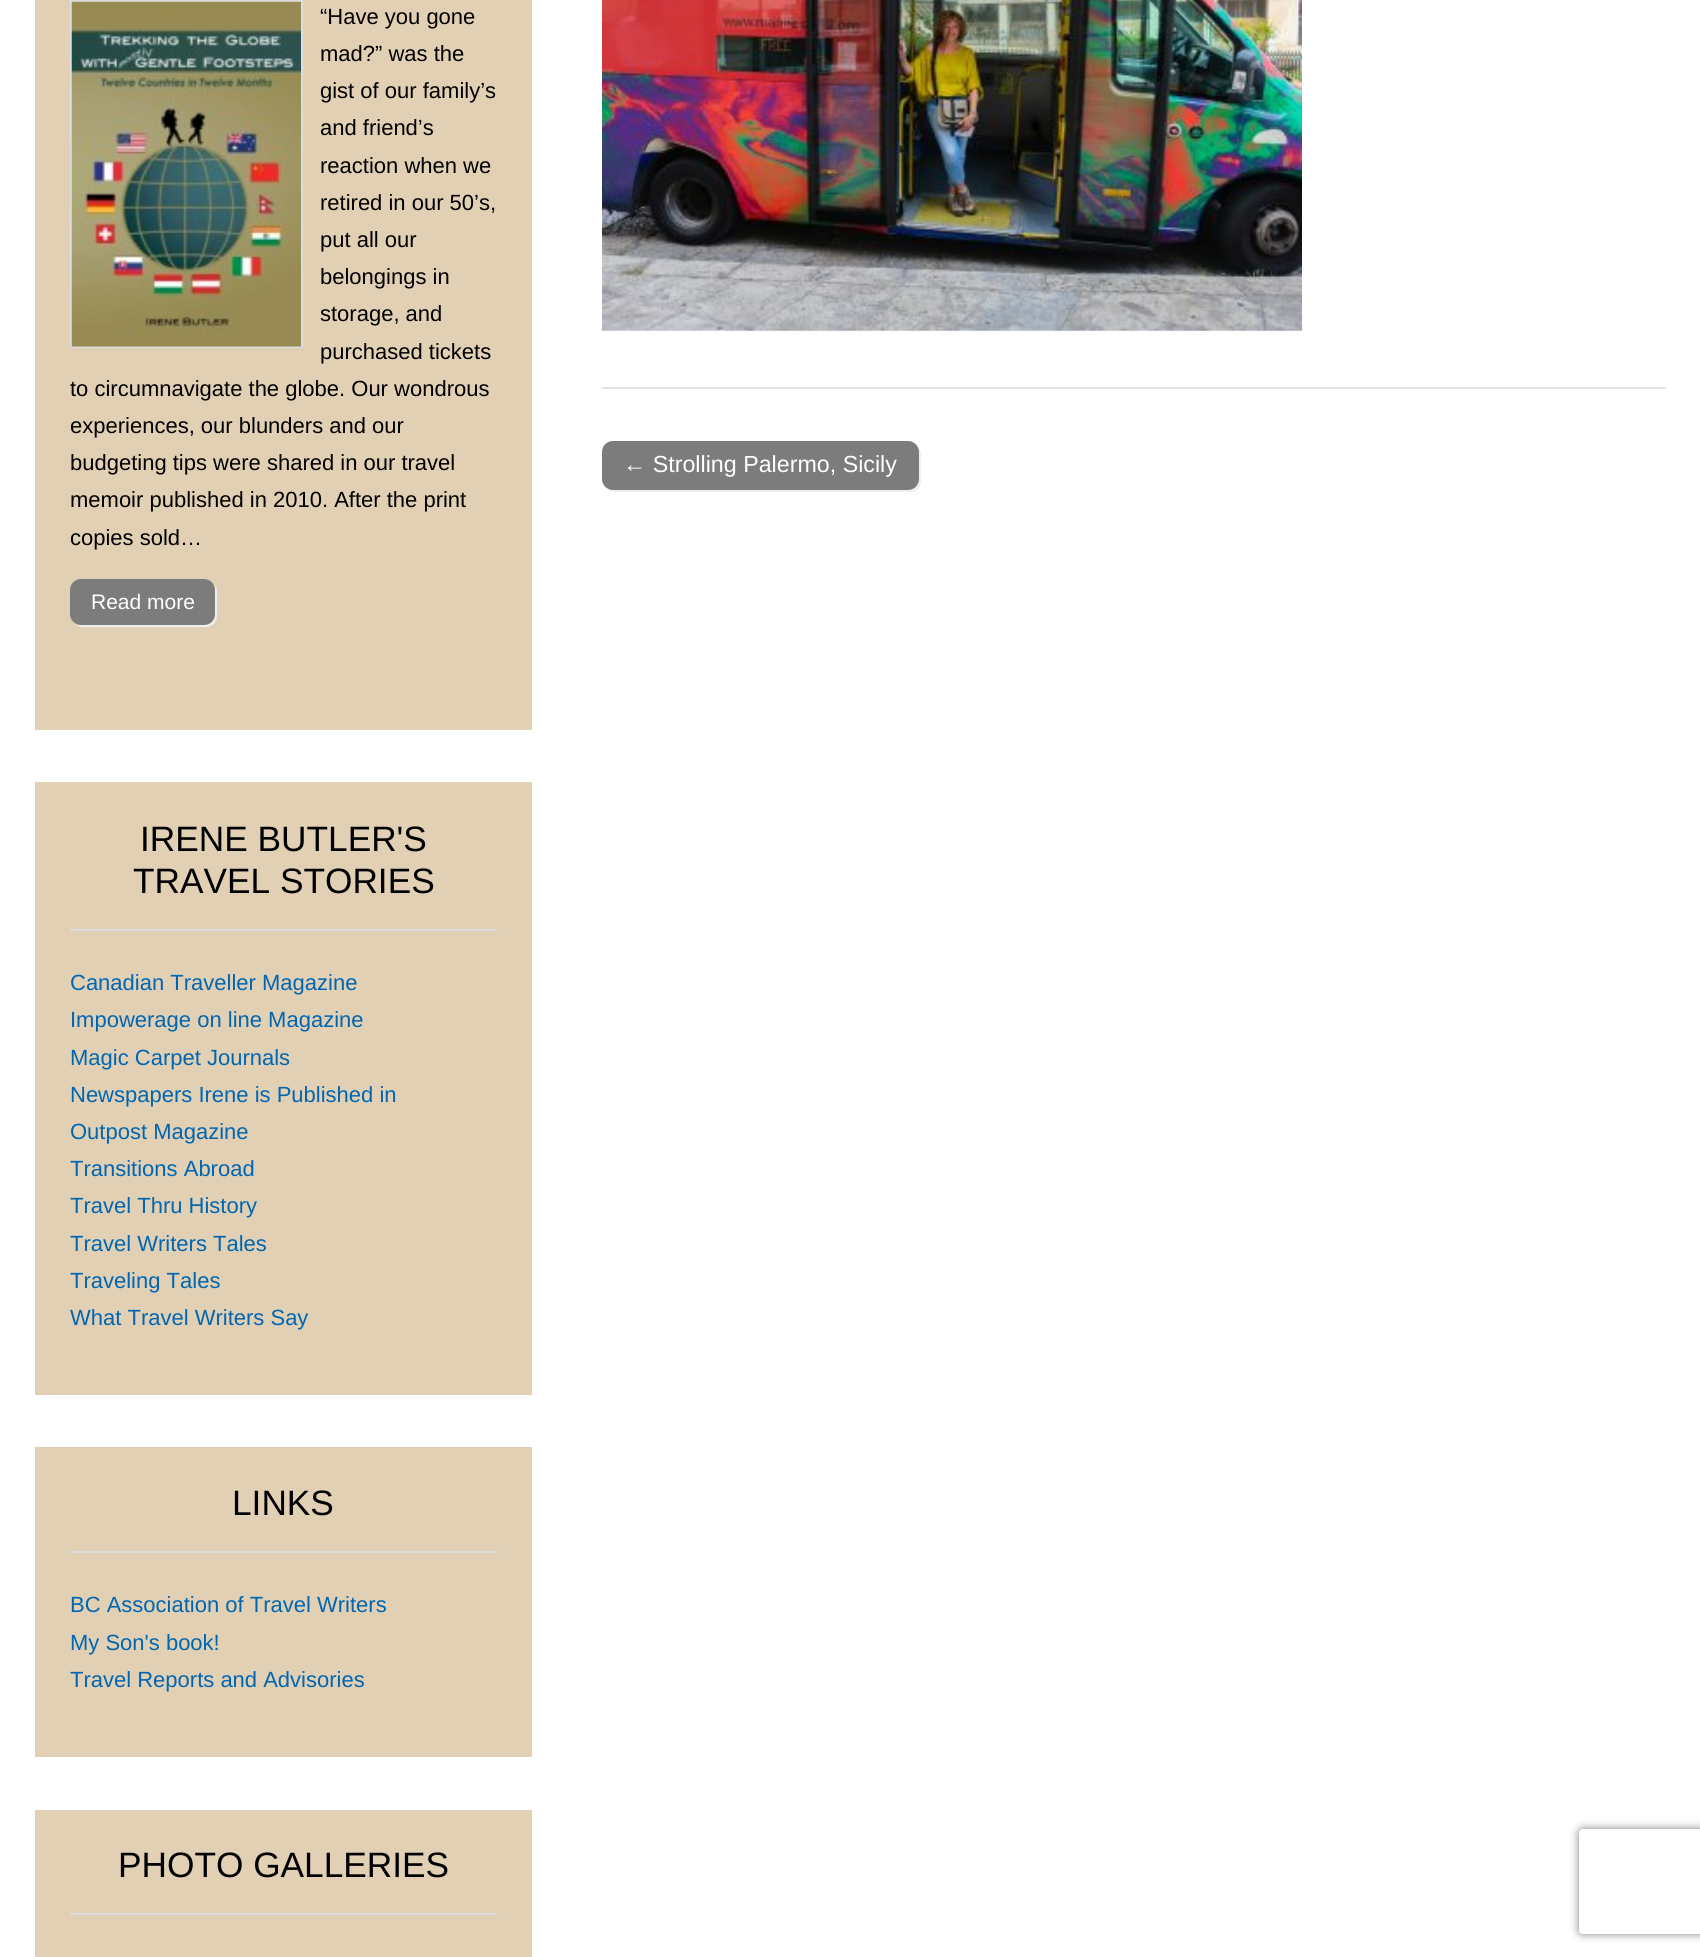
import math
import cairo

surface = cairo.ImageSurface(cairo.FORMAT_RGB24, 1700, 1957)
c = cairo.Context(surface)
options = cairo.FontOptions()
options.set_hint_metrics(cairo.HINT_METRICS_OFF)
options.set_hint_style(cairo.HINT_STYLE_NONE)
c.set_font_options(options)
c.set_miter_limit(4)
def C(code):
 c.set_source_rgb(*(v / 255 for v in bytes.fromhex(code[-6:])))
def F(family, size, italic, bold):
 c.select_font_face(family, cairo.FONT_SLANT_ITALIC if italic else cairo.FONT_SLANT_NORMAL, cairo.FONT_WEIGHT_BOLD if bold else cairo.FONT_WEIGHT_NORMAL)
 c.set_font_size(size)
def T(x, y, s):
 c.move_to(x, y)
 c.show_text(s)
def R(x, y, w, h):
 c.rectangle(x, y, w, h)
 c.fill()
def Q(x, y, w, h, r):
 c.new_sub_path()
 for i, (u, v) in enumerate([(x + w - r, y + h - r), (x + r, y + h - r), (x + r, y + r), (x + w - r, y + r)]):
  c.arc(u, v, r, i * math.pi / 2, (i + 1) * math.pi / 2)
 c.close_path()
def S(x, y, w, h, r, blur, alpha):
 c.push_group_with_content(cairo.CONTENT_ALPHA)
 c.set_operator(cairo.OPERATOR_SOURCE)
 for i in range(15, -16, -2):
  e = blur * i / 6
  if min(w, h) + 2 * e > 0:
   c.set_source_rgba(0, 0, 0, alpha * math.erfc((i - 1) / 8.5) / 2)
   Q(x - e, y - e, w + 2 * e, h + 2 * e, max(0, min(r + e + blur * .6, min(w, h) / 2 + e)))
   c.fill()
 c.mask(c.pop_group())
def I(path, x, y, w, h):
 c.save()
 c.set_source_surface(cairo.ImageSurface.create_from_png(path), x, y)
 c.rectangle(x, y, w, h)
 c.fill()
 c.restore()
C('ffffff')
c.paint()
C('e2d0b5')
R(35,0,497,730)
c.rectangle(71,1,231,346)
C('dddddd')
c.stroke()
I('1.png',71,1,230,346)
F('Liberation Sans',22,0,0)
C('000000')
T(320,24,'“Have you gone')
T(320,61,'mad?” was the')
T(320,98,'gist of our family’s')
T(320,135,'and friend’s')
T(320,173,'reaction when we')
T(320,210,'retired in our 50’s,')
T(320,247,'put all our')
T(320,284,'belongings in')
T(320,321,'storage, and')
T(320,359,'purchased tickets')
T(70,396,'to circumnavigate the globe. Our wondrous')
T(70,433,'experiences, our blunders and our')
T(70,470,'budgeting tips were shared in our travel')
T(70,507,'memoir published in 2010. After the print')
T(70,545,'copies sold…')
C('eeeeee')
c.new_path()
c.move_to(74,623)
c.curve_to(76,625,79,627,83,627)
c.line_to(206,627)
c.curve_to(212,627,217,622,217,616)
c.line_to(217,592)
c.curve_to(217,589,216,586,214,584)
c.curve_to(215,586,215,588,215,590)
c.line_to(215,614)
c.curve_to(215,620,211,625,205,625)
c.line_to(80,625)
c.curve_to(78,625,76,624,74,623)
c.close_path()
c.fill()
C('7c7c7c')
Q(70,579,145,46,11)
c.fill()
F('Liberation Sans',21,0,0)
C('ffffff')
T(91,609,'Read more')
C('e2d0b5')
R(35,782,497,613)
C('dddddd')
R(70,929,427,2)
F('Liberation Sans',35.25,0,0)
C('000000')
T(140,851,'IRENE BUTLER\'S')
T(133,893,'TRAVEL STORIES')
F('Liberation Sans',22,0,0)
C('0066b2')
T(70,990,'Canadian Traveller Magazine')
T(70,1027,'Impowerage on line Magazine')
T(70,1065,'Magic Carpet Journals')
T(70,1102,'Newspapers Irene is Published in')
T(70,1139,'Outpost Magazine')
T(70,1176,'Transitions Abroad')
T(70,1213,'Travel Thru History')
T(70,1251,'Travel Writers Tales')
T(70,1288,'Traveling Tales')
T(70,1325,'What Travel Writers Say')
C('e2d0b5')
R(35,1447,497,310)
C('dddddd')
R(70,1551,427,2)
F('Liberation Sans',35.25,0,0)
C('000000')
T(232,1515,'LINKS')
F('Liberation Sans',22,0,0)
C('0066b2')
T(70,1612,'BC Association of Travel Writers')
T(70,1650,'My Son\'s book!')
T(70,1687,'Travel Reports and Advisories')
C('e2d0b5')
R(35,1810,497,147)
C('dddddd')
R(70,1913,427,2)
F('Liberation Sans',35.25,0,0)
C('000000')
T(118,1877,'PHOTO GALLERIES')
C('e2e2e2')
R(602,387,1064,2)
I('2.png',602,0,700,331)
C('eeeeee')
c.new_path()
c.move_to(607,488)
c.curve_to(609,491,612,492,615,492)
c.line_to(910,492)
c.curve_to(916,492,921,487,921,481)
c.line_to(921,454)
c.curve_to(921,450,919,447,917,445)
c.curve_to(918,447,919,449,919,452)
c.line_to(919,480)
c.curve_to(919,485,914,490,908,490)
c.line_to(612,490)
c.curve_to(610,490,608,489,607,488)
c.close_path()
c.fill()
C('7c7c7c')
Q(602,441,317,49,11)
c.fill()
F('Liberation Sans',23.25,0,0)
C('ffffff')
T(623,472,'← Strolling Palermo, Sicily')
c.save()
c.set_fill_rule(cairo.FILL_RULE_EVEN_ODD)
c.new_path()
c.move_to(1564,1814)
c.line_to(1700,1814)
c.line_to(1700,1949)
c.line_to(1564,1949)
c.close_path()
c.move_to(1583,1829)
c.line_to(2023,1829)
c.curve_to(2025,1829,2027,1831,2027,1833)
c.line_to(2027,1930)
c.curve_to(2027,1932,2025,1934,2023,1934)
c.line_to(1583,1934)
c.curve_to(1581,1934,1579,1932,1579,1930)
c.line_to(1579,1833)
c.curve_to(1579,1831,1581,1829,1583,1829)
c.close_path()
c.clip()
C('808080')
S(1579,1829,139,105,4,4.5,1)
c.restore()
surface.write_to_png('o.png')
